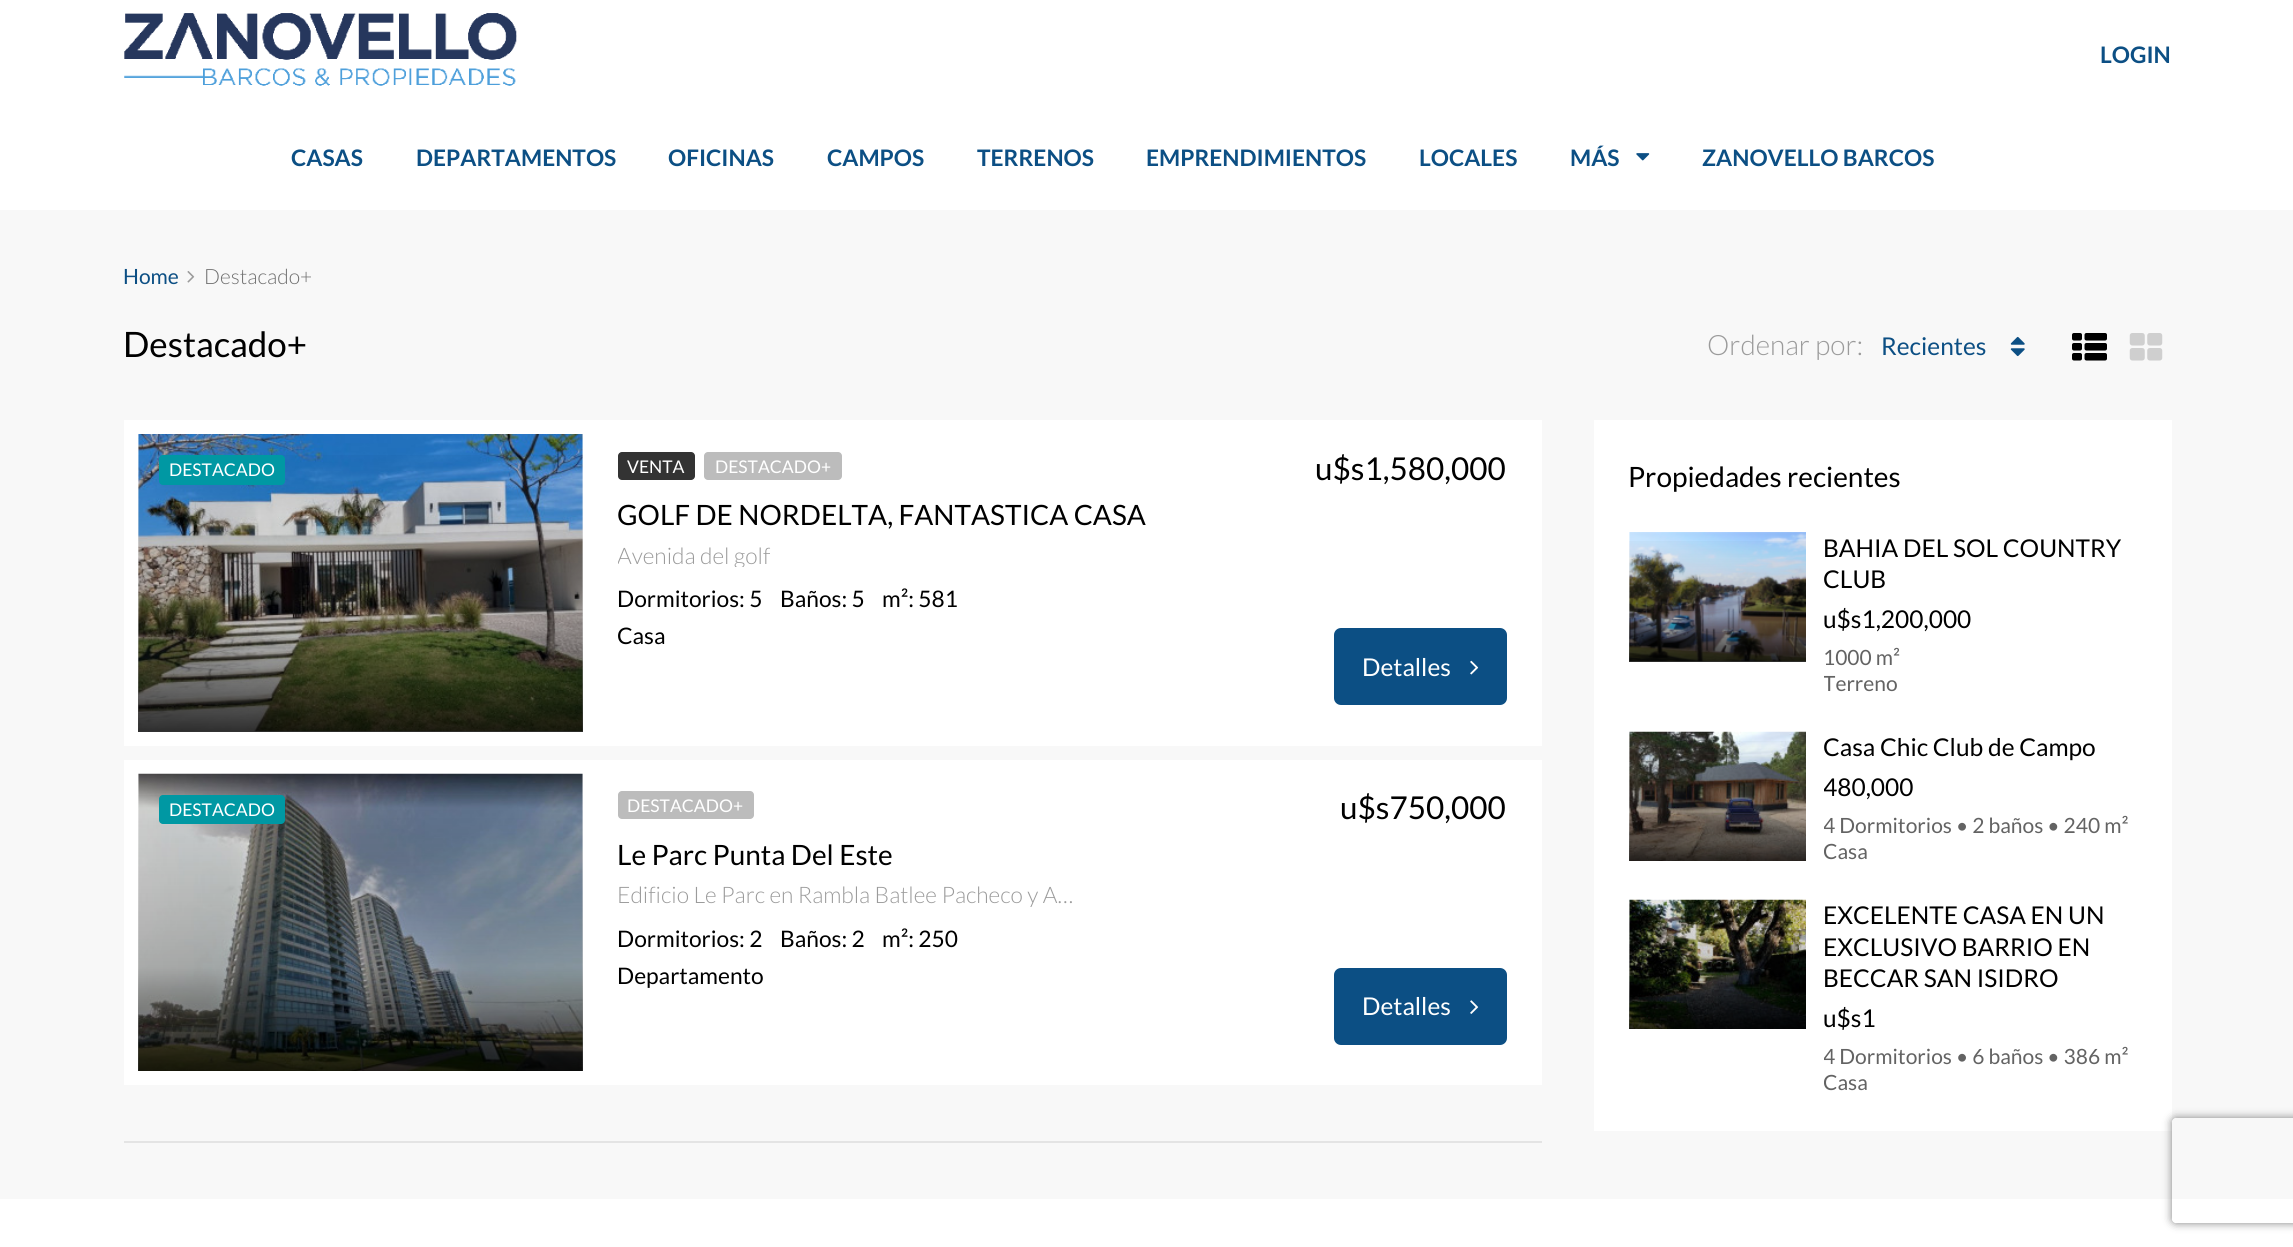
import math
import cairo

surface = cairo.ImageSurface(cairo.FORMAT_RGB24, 2293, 1247)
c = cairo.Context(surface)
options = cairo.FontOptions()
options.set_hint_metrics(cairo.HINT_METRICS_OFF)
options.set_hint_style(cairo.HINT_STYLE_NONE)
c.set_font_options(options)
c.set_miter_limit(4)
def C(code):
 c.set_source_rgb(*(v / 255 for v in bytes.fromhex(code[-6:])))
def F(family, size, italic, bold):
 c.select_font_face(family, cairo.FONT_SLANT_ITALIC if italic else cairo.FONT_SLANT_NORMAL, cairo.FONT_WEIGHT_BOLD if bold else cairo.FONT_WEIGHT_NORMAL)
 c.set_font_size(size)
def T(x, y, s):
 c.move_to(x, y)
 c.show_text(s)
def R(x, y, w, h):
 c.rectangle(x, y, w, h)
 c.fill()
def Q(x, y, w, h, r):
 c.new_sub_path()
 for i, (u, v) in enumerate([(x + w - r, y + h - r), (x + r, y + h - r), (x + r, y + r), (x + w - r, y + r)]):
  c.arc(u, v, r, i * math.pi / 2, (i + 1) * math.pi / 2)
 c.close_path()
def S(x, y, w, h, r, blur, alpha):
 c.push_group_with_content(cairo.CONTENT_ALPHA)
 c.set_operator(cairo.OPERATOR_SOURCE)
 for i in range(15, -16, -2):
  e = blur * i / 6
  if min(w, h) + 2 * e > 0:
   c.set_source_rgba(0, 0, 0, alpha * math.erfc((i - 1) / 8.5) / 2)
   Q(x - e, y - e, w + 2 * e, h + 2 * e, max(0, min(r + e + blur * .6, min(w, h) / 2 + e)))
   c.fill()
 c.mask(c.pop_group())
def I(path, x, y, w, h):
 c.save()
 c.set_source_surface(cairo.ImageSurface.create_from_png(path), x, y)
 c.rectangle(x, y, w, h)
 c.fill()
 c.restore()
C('f8f8f8')
c.paint()
C('ffffff')
R(0,0,2293,210)
F('Lato',22.75,0,1)
C('0c4f84')
T(2100,63,'LOGIN')
I('1.png',124,13,393,73)
T(291,166,'CASAS')
T(416,166,'DEPARTAMENTOS')
T(668,166,'OFICINAS')
T(827,166,'CAMPOS')
T(977,166,'TERRENOS')
T(1146,166,'EMPRENDIMIENTOS')
T(1419,166,'LOCALES')
T(1570,166,'MÁS')
I('2.png',1636,153,14,8)
T(1702,166,'ZANOVELLO BARCOS')
F('Lato',21,0,0)
T(123,284,'Home')
I('3.png',187,271,8,12)
F('Lato Light',21,0,0)
C('707070')
T(204,284,'Destacado+')
F('Lato',35,0,0)
C('000000')
T(123,357,'Destacado+')
F('Lato Light',28,0,0)
C('9b9b9b')
T(1707,355,'Ordenar por:')
F('Lato',24.5,0,0)
C('0c4f84')
T(1881,355,'Recientes')
I('4.png',2010,336,15,21)
I('5.png',2072,333,35,28)
I('6.png',2129,333,34,28)
C('ffffff')
R(124,420,1418,326)
I('7.png',138,434,445,298)
gradient = cairo.LinearGradient(361,434,361,732)
gradient.add_color_stop_rgba(0,0,0,0,0)
gradient.add_color_stop_rgba(.65,0,0,0,.2)
gradient.add_color_stop_rgba(1,0,0,0,.8)
c.set_source(gradient)
R(138,455,445,277)
C('0098a3')
Q(159,455,126,30,4)
c.fill()
F('Lato',17.5,0,0)
C('ffffff')
T(169,476,'DESTACADO')
C('333333')
Q(618,452,77,28,4)
c.fill()
C('ffffff')
T(627,473,'VENTA')
C('bcbcbc')
Q(704,452,138,28,4)
c.fill()
C('ffffff')
T(715,473,'DESTACADO+')
F('Lato',28,0,0)
C('000000')
T(617,525,'GOLF DE NORDELTA, FANTASTICA CASA')
c.save()
c.rectangle(618,544,464,23)
c.clip()
F('Lato Light',22.75,0,0)
C('9b9b9b')
T(617,564,'Avenida del golf')
c.restore()
F('Lato',22.75,0,0)
T(617,607,'Dormitorios: 5')
T(780,607,'Baños: 5')
T(882,607,'m²: 581')
T(617,644,'Casa')
F('Lato',31.5,0,0)
T(1315,480,'u$s1,580,000')
C('0c4f84')
Q(1335,629,171,75,6)
c.fill_preserve()
c.stroke()
F('Lato',24.5,0,0)
C('ffffff')
T(1362,676,'Detalles')
I('8.png',1470,660,9,15)
R(124,760,1418,325)
I('9.png',138,773,445,298)
gradient = cairo.LinearGradient(361,774,361,1071)
gradient.add_color_stop_rgba(0,0,0,0,0)
gradient.add_color_stop_rgba(.65,0,0,0,.2)
gradient.add_color_stop_rgba(1,0,0,0,.8)
c.set_source(gradient)
R(138,795,445,276)
C('0098a3')
Q(159,795,126,29,4)
c.fill()
F('Lato',17.5,0,0)
C('ffffff')
T(169,816,'DESTACADO')
C('bcbcbc')
Q(618,791,136,28,4)
c.fill()
C('ffffff')
T(627,812,'DESTACADO+')
F('Lato',28,0,0)
C('000000')
T(617,865,'Le Parc Punta Del Este')
F('Lato Light',22.75,0,0)
C('9b9b9b')
T(617,903,'Edificio Le Parc en Rambla Batlee Pacheco y A…')
F('Lato',22.75,0,0)
C('000000')
T(617,947,'Dormitorios: 2')
T(780,947,'Baños: 2')
T(882,947,'m²: 250')
T(617,984,'Departamento')
F('Lato',31.5,0,0)
T(1340,819,'u$s750,000')
C('0c4f84')
Q(1335,969,171,75,6)
c.fill_preserve()
c.stroke()
F('Lato',24.5,0,0)
C('ffffff')
T(1362,1015,'Detalles')
I('10.png',1470,1000,9,14)
C('e4e4e4')
R(124,1141,1418,2)
C('ffffff')
R(1594,420,578,711)
F('Lato',28,0,0)
C('000000')
T(1628,487,'Propiedades recientes')
I('11.png',1629,532,177,130)
gradient = cairo.LinearGradient(1718,532,1718,662)
gradient.add_color_stop_rgba(0,0,0,0,0)
gradient.add_color_stop_rgba(.65,0,0,0,.2)
gradient.add_color_stop_rgba(1,0,0,0,.8)
c.set_source(gradient)
R(1629,541,177,121)
F('Lato',24.5,0,0)
C('000000')
T(1823,557,'BAHIA DEL SOL COUNTRY')
c.save()
c.rectangle(1824,532,313,165)
c.clip()
T(1823,588,'CLUB')
c.restore()
T(1823,628,'u$s1,200,000')
F('Lato',21,0,0)
C('636363')
T(1823,665,'1000 m²')
c.save()
c.rectangle(1824,532,313,165)
c.clip()
T(1823,691,'Terreno')
c.restore()
I('12.png',1629,731,177,130)
gradient = cairo.LinearGradient(1718,732,1718,861)
gradient.add_color_stop_rgba(0,0,0,0,0)
gradient.add_color_stop_rgba(.65,0,0,0,.2)
gradient.add_color_stop_rgba(1,0,0,0,.8)
c.set_source(gradient)
R(1629,741,177,120)
c.save()
c.rectangle(1824,732,313,133)
c.clip()
F('Lato',24.5,0,0)
C('000000')
T(1823,756,'Casa Chic Club de Campo')
T(1823,796,'480,000')
F('Lato',21,0,0)
C('636363')
T(1823,833,'4 Dormitorios • 2 baños • 240 m²')
T(1823,859,'Casa')
c.restore()
I('13.png',1629,899,177,130)
gradient = cairo.LinearGradient(1718,900,1718,1029)
gradient.add_color_stop_rgba(0,0,0,0,0)
gradient.add_color_stop_rgba(.65,0,0,0,.2)
gradient.add_color_stop_rgba(1,0,0,0,.8)
c.set_source(gradient)
R(1629,909,177,120)
F('Lato',24.5,0,0)
C('000000')
T(1823,924,'EXCELENTE CASA EN UN')
T(1823,956,'EXCLUSIVO BARRIO EN')
T(1823,987,'BECCAR SAN ISIDRO')
T(1823,1027,'u$s1')
c.save()
c.rectangle(1824,900,313,196)
c.clip()
F('Lato',21,0,0)
C('636363')
T(1823,1064,'4 Dormitorios • 6 baños • 386 m²')
T(1823,1090,'Casa')
c.restore()
C('ffffff')
R(0,1199,2293,48)
c.save()
c.set_fill_rule(cairo.FILL_RULE_EVEN_ODD)
c.new_path()
c.move_to(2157,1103)
c.line_to(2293,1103)
c.line_to(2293,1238)
c.line_to(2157,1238)
c.close_path()
c.move_to(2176,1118)
c.line_to(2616,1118)
c.curve_to(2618,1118,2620,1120,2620,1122)
c.line_to(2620,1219)
c.curve_to(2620,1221,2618,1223,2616,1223)
c.line_to(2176,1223)
c.curve_to(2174,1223,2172,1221,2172,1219)
c.line_to(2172,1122)
c.curve_to(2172,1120,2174,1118,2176,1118)
c.close_path()
c.clip()
C('808080')
S(2172,1118,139,105,4,4.5,1)
c.restore()
surface.write_to_png('o.png')
